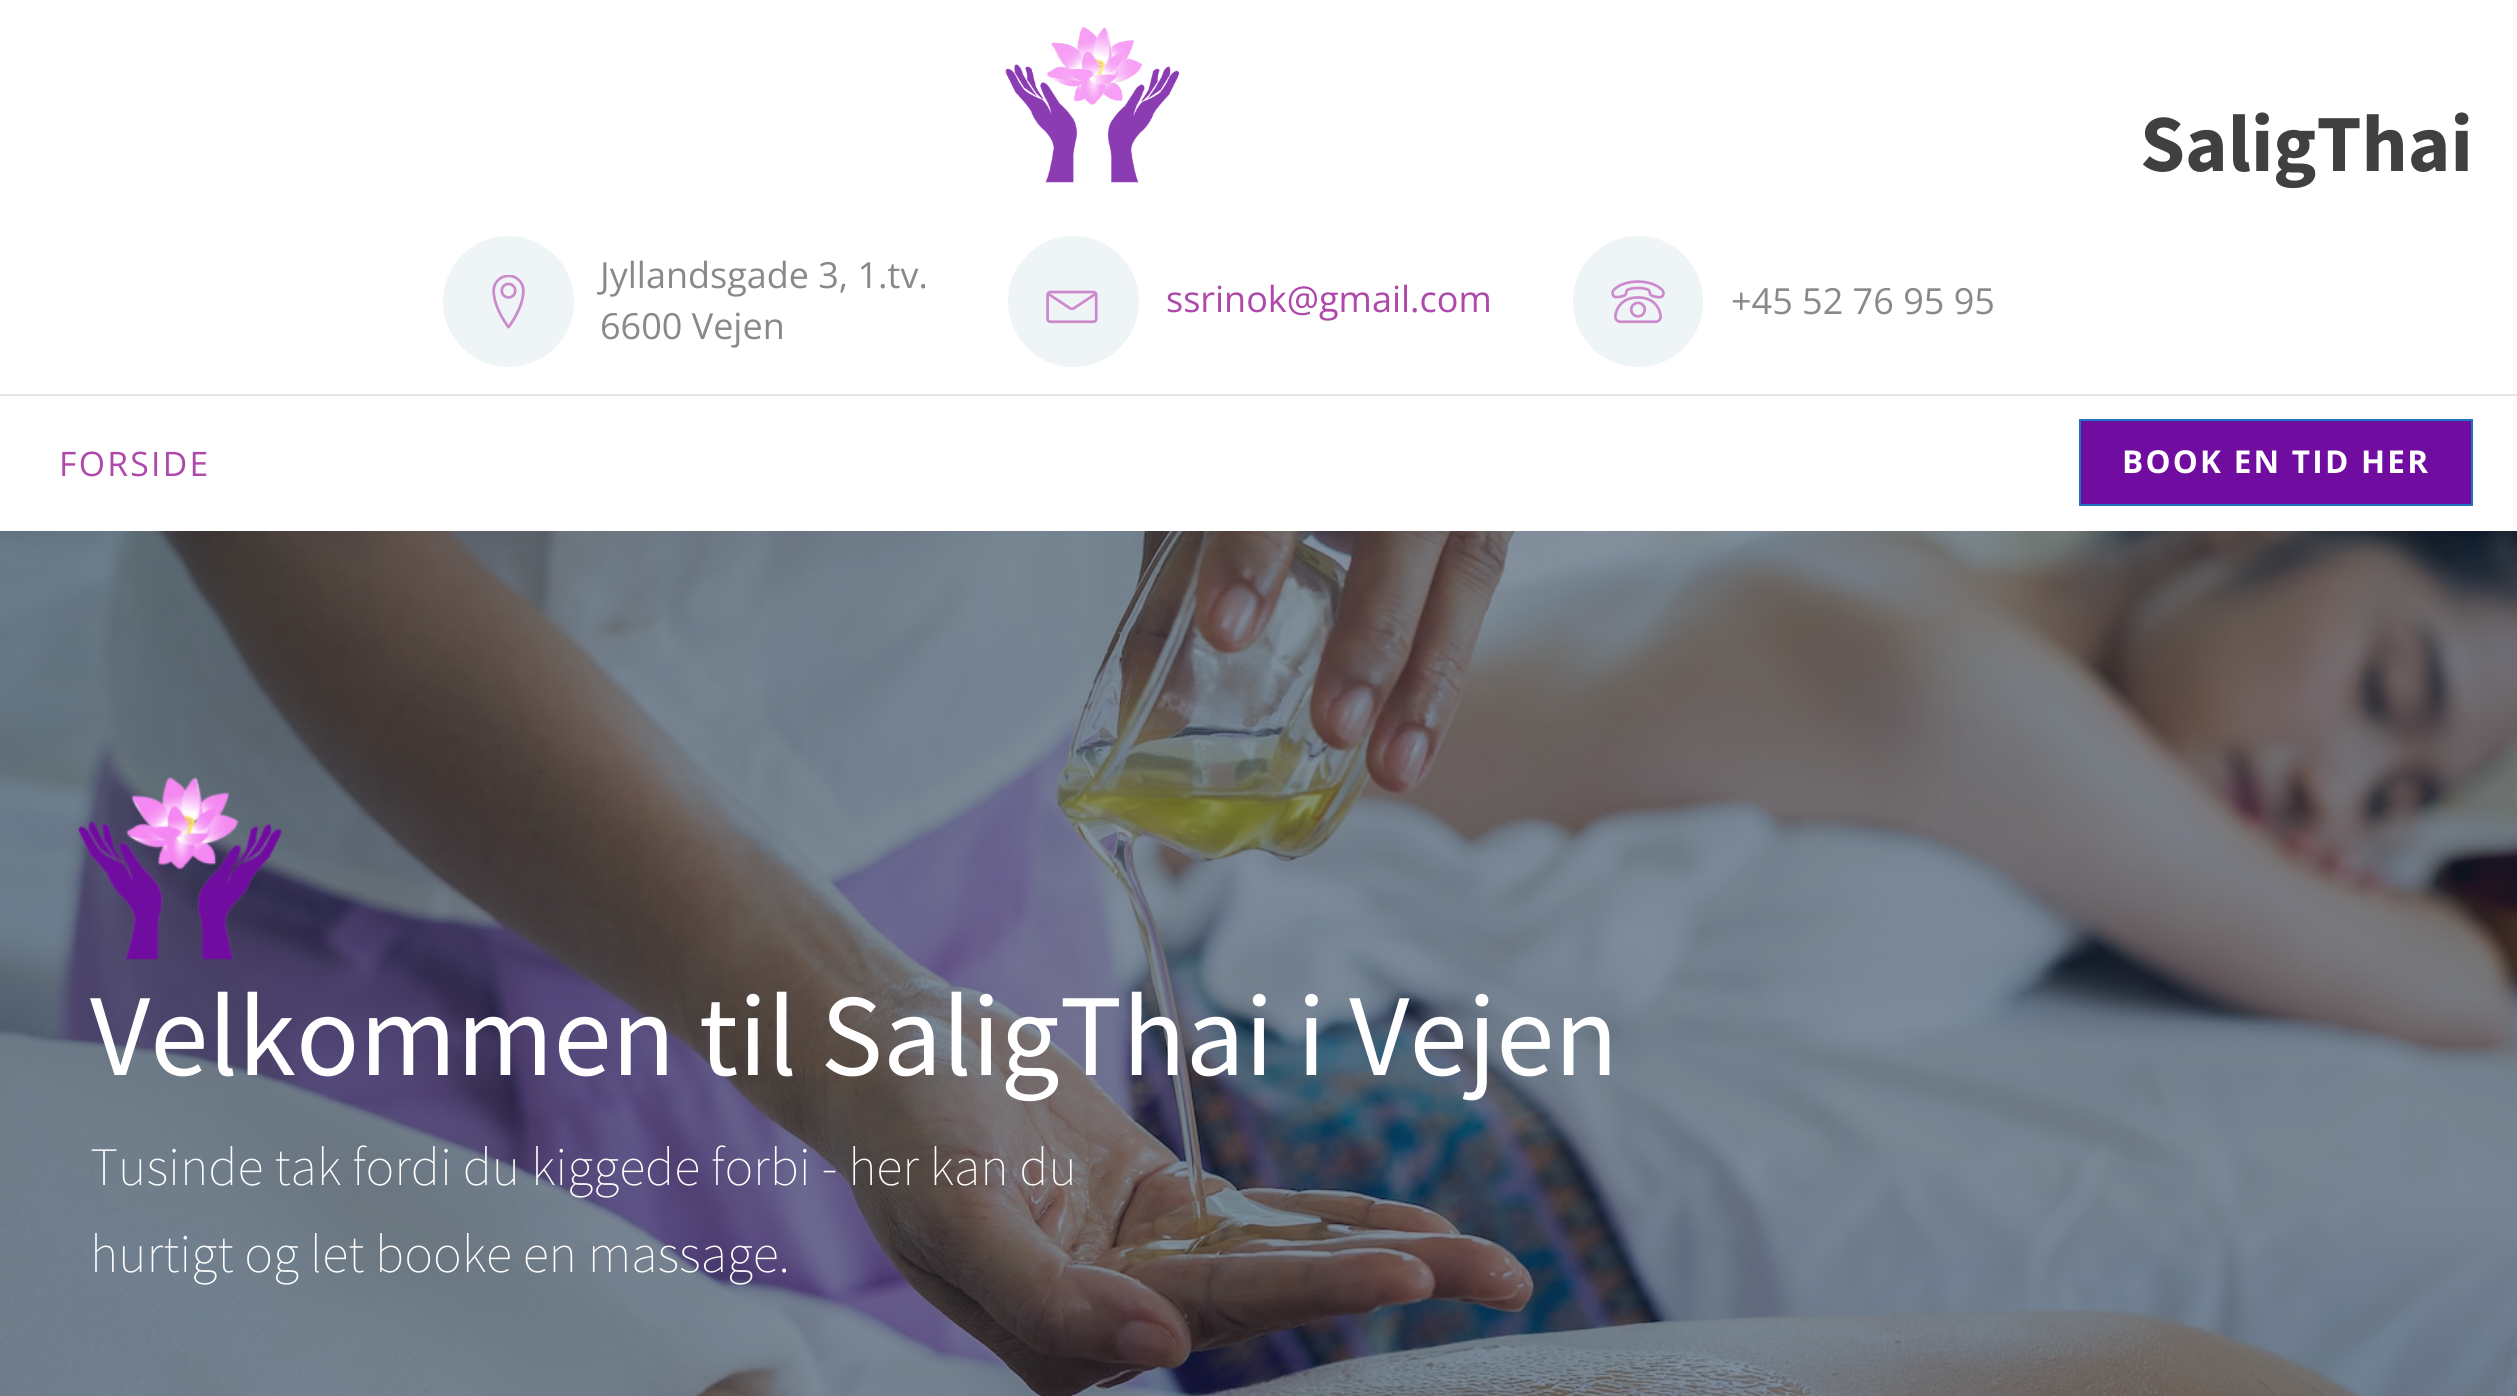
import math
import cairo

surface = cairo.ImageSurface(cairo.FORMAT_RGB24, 2517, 1396)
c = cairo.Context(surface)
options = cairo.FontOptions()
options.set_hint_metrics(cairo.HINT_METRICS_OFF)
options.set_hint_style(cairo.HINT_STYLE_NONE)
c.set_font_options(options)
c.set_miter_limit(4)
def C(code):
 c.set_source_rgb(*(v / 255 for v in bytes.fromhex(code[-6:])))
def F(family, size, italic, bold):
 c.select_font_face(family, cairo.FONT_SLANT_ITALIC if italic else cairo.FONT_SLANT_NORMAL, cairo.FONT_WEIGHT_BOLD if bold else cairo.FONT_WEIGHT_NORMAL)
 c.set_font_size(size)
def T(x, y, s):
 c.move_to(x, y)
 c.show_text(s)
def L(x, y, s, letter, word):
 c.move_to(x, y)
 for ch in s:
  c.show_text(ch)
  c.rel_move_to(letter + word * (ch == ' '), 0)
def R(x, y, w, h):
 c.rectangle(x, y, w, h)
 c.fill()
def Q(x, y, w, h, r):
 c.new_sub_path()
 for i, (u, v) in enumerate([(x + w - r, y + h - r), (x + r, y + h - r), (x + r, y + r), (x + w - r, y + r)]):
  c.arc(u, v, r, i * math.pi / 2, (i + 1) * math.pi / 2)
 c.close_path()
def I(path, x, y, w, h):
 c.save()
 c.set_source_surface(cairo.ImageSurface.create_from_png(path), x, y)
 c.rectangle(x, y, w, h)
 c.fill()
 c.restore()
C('ffffff')
c.paint()
I('1.png',1005,27,174,156)
F('Source Sans Pro',81,0,1)
C('404040')
T(2140,171,'SaligThai')
C('eff4f7')
c.new_path()
c.arc(508.5,301.5,64.5,0,2 * math.pi)
c.fill_preserve()
c.stroke()
I('2.png',492,275,33,54)
F('Open Sans',36,0,0)
C('898989')
T(600,288,'Jyllandsgade 3, 1.tv.')
T(600,339,'6600 Vejen')
C('eff4f7')
c.new_path()
c.arc(1073.5,301.5,64.5,0,2 * math.pi)
c.fill_preserve()
c.stroke()
I('3.png',1046,290,52,34)
C('af48aa')
T(1166,312,'ssrinok@gmail.com')
C('eff4f7')
Q(1574,237,128,129,64)
c.fill_preserve()
c.stroke()
I('4.png',1611,280,54,44)
C('898989')
T(1731,314,'+45 52 76 95 95')
C('e6e6e6')
R(0,394,2517,2)
F('Open Sans',33.75,0,0)
C('af48aa')
L(59,476,'FORSIDE',2.25,0)
C('700ca0')
c.rectangle(2080,420,392,85)
c.fill_preserve()
C('1e73be')
c.stroke()
F('Open Sans',31.5,0,1)
C('ffffff')
L(2122,473,'BOOK EN TID HER',2.25,0)
I('5.png',0,531,2517,865)
I('6.png',78,776,204,185)
F('Source Sans Pro',117,0,0)
T(90,1075,'Velkommen til SaligThai i Vejen')
F('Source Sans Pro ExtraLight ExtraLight',54,0,0)
T(90,1185,'Tusinde tak fordi du kiggede forbi - her kan du')
T(90,1272,'hurtigt og let booke en massage.')
surface.write_to_png('o.png')
